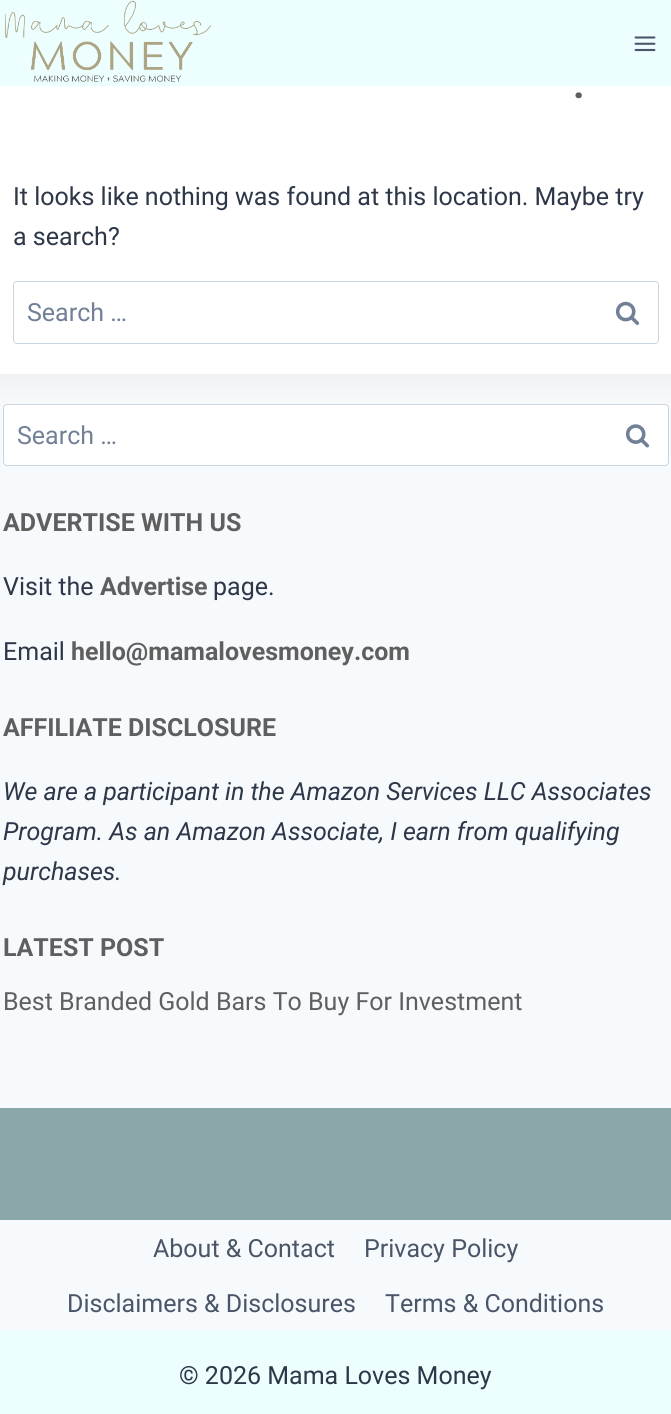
import math
import cairo

surface = cairo.ImageSurface(cairo.FORMAT_RGB24, 671, 1414)
c = cairo.Context(surface)
options = cairo.FontOptions()
options.set_hint_metrics(cairo.HINT_METRICS_OFF)
options.set_hint_style(cairo.HINT_STYLE_NONE)
c.set_font_options(options)
c.set_miter_limit(4)
def C(code):
 c.set_source_rgb(*(v / 255 for v in bytes.fromhex(code[-6:])))
def F(family, size, italic, bold):
 c.select_font_face(family, cairo.FONT_SLANT_ITALIC if italic else cairo.FONT_SLANT_NORMAL, cairo.FONT_WEIGHT_BOLD if bold else cairo.FONT_WEIGHT_NORMAL)
 c.set_font_size(size)
def T(x, y, s):
 c.move_to(x, y)
 c.show_text(s)
def R(x, y, w, h):
 c.rectangle(x, y, w, h)
 c.fill()
def Q(x, y, w, h, r):
 c.new_sub_path()
 for i, (u, v) in enumerate([(x + w - r, y + h - r), (x + r, y + h - r), (x + r, y + r), (x + w - r, y + r)]):
  c.arc(u, v, r, i * math.pi / 2, (i + 1) * math.pi / 2)
 c.close_path()
def S(x, y, w, h, r, blur, alpha):
 c.push_group_with_content(cairo.CONTENT_ALPHA)
 c.set_operator(cairo.OPERATOR_SOURCE)
 for i in range(15, -16, -2):
  e = blur * i / 6
  if min(w, h) + 2 * e > 0:
   c.set_source_rgba(0, 0, 0, alpha * math.erfc((i - 1) / 8.5) / 2)
   Q(x - e, y - e, w + 2 * e, h + 2 * e, max(0, min(r + e + blur * .6, min(w, h) / 2 + e)))
   c.fill()
 c.mask(c.pop_group())
def I(path, x, y, w, h):
 c.save()
 c.set_source_surface(cairo.ImageSurface.create_from_png(path), x, y)
 c.rectangle(x, y, w, h)
 c.fill()
 c.restore()
C('f7fafc')
c.paint()
C('000000')
S(-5,55,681,325,0,15.5,.05)
C('edfeff')
R(0,0,671,86)
C('ffffff')
R(0,86,671,288)
I('1.png',3,0,216,87)
I('2.png',634,36,22,16)
F('Roboto',40,0,1)
C('5f5f5f')
T(573,98,'.')
F('Roboto',25,0,0)
C('2d3748')
T(13,205,'It looks like nothing was found at this location. Maybe try')
T(13,245,'a search?')
Q(13.5,281.5,645,62,3.5)
C('cbd5e0')
c.set_line_width(1)
c.stroke()
C('718096')
T(27,321,'Search …')
I('3.png',615,301,25,24)
C('ffffff')
Q(3.5,404.5,665,61,3.5)
c.fill_preserve()
C('cbd5e0')
c.stroke()
C('718096')
T(17,444,'Search …')
I('4.png',625,424,25,24)
F('Roboto',25,0,1)
C('5f5f5f')
T(3,531,'ADVERTISE WITH US')
F('Roboto',25,0,0)
C('2d3748')
T(3,595,'Visit the')
F('Roboto',25,0,1)
C('5f5f5f')
T(100,595,'Advertise')
F('Roboto',25,0,0)
C('2d3748')
T(213,595,'page.')
T(3,660,'Email')
F('Roboto',25,0,1)
C('5f5f5f')
T(71,660,'hello@mamalovesmoney.com')
T(3,736,'AFFILIATE DISCLOSURE')
F('Roboto',25,1,0)
C('2d3748')
T(3,800,'We are a participant in the Amazon Services LLC Associates')
T(3,840,'Program. As an Amazon Associate, I earn from qualifying')
T(3,880,'purchases.')
F('Roboto',25,0,1)
C('5f5f5f')
T(3,956,'LATEST POST')
F('Roboto',25,0,0)
T(3,1010,'Best Branded Gold Bars To Buy For Investment')
C('8ba7a8')
R(0,1108,671,112)
C('4a5568')
T(153,1257,'About & Contact')
T(364,1257,'Privacy Policy')
T(67,1312,'Disclaimers & Disclosures')
T(385,1312,'Terms & Conditions')
C('edfeff')
R(0,1330,671,84)
C('2d3748')
T(179,1384,'© 2026 Mama Loves Money')
surface.write_to_png('o.png')
